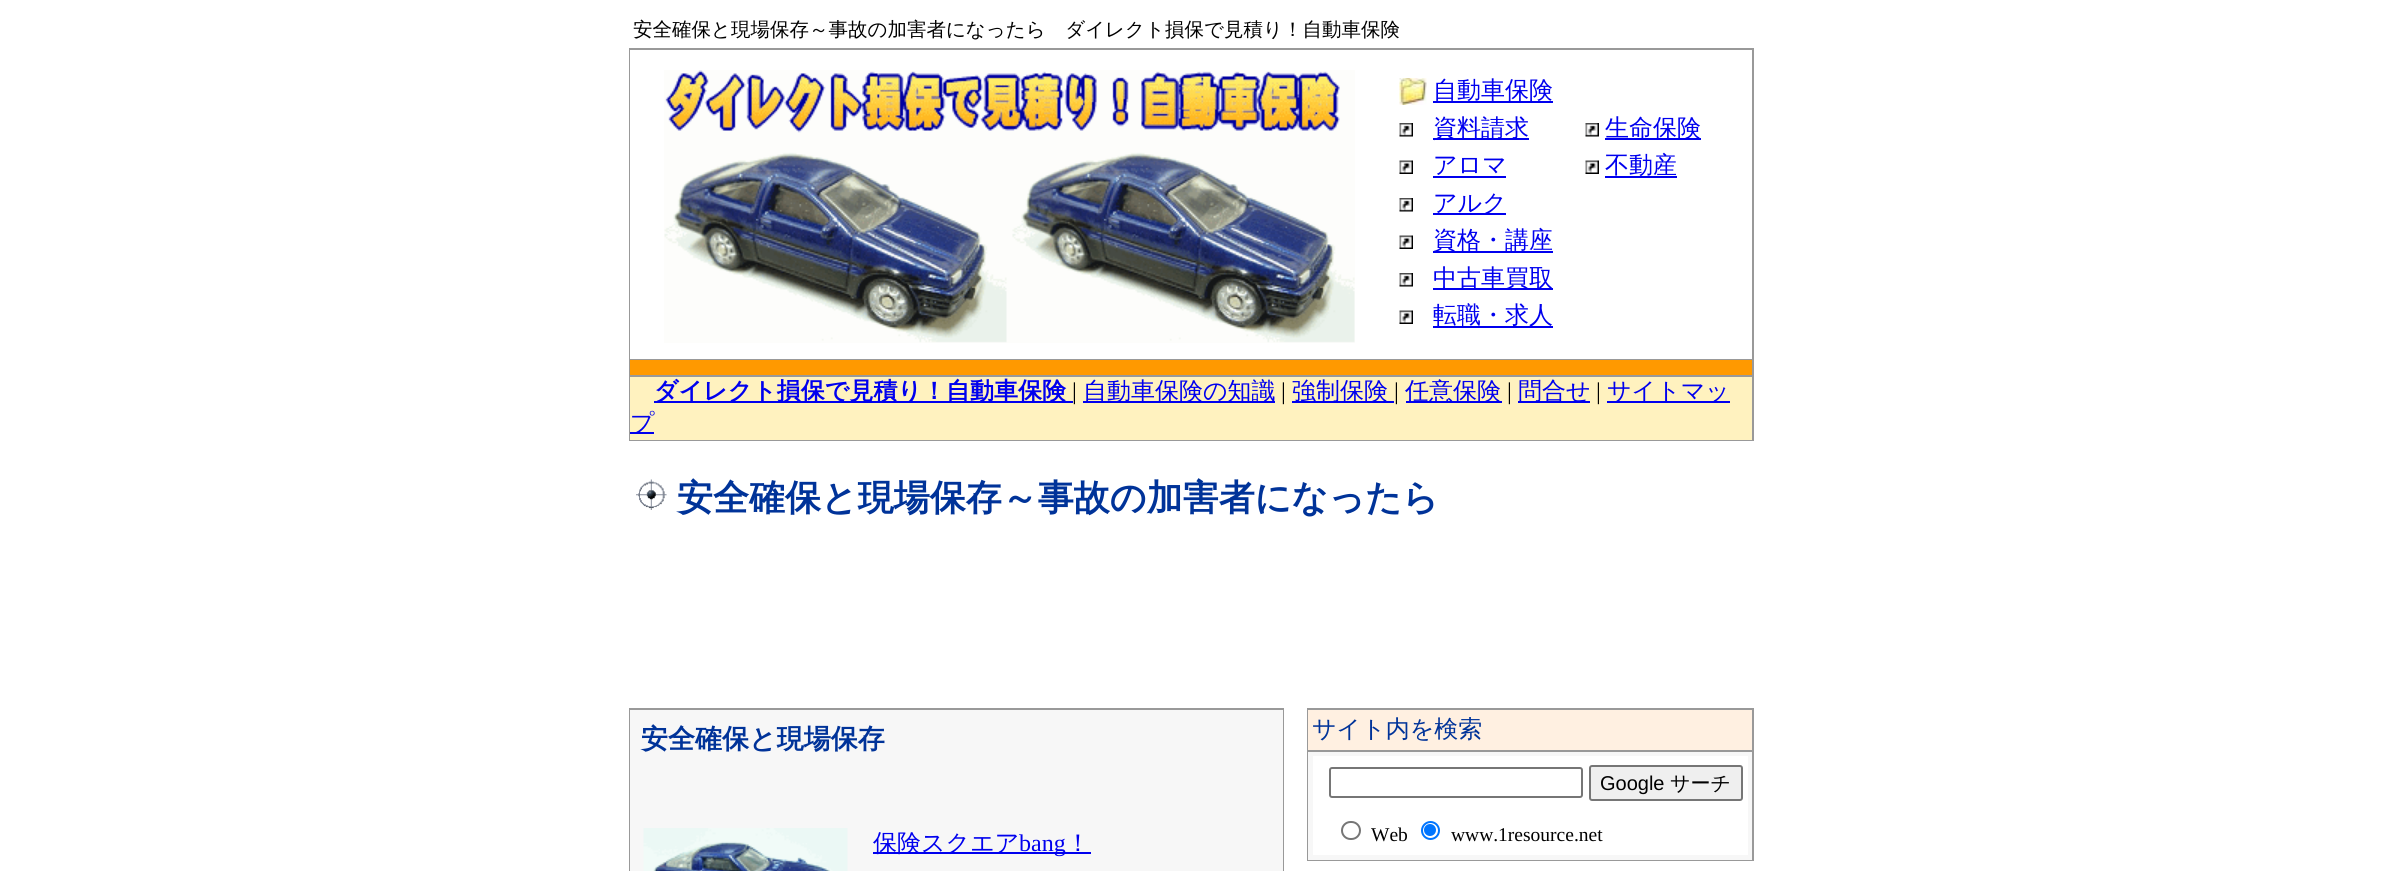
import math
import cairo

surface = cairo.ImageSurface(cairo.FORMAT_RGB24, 2381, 871)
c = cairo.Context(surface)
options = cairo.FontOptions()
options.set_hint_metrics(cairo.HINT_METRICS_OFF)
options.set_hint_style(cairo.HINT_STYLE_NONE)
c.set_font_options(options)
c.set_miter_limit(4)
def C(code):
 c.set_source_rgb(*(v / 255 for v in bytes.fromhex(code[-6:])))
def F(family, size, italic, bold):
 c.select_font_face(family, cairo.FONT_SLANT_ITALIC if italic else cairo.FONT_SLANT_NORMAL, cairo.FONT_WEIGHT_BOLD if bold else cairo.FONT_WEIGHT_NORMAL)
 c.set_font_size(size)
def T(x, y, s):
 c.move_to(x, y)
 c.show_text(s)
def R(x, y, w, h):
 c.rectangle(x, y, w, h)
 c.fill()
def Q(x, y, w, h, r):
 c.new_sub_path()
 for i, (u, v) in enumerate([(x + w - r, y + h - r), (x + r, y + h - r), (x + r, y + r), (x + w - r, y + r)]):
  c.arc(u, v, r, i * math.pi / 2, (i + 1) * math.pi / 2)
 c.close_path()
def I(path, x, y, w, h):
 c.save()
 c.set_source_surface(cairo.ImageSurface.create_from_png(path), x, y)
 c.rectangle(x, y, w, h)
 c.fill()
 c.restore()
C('ffffff')
c.paint()
F('WenQuanYi Zen Hei Medium',19.5,0,0)
C('000000')
T(633,36,'安全確保と現場保存～事故の加害者になったら　ダイレクト損保で見積り！自動車保険')
C('999999')
R(629,48,1125,393)
C('ffffff')
R(630,50,1122,309)
I('1.png',664,70,691,273)
I('2.png',1399,78,28,27)
C('0000ee')
R(1433,101,120,2)
F('WenQuanYi Zen Hei Medium',24,0,0)
T(1433,98,'自動車保険')
I('3.png',1399,123,14,14)
R(1433,138,96,2)
T(1433,136,'資料請求')
I('4.png',1585,123,14,14)
R(1605,138,96,2)
T(1605,136,'生命保険')
I('5.png',1399,160,14,14)
T(1433,173,'アロマ')
R(1433,176,73,2)
I('6.png',1585,160,14,14)
R(1605,176,72,2)
T(1605,173,'不動産')
I('3.png',1399,198,14,14)
R(1433,213,73,2)
T(1433,211,'アルク')
I('5.png',1399,235,14,14)
R(1433,251,120,2)
T(1433,248,'資格・講座')
I('3.png',1399,273,14,14)
R(1433,288,120,2)
T(1433,286,'中古車買取')
I('5.png',1399,310,14,14)
R(1433,326,120,2)
T(1433,323,'転職・求人')
C('ff9900')
R(630,360,1122,15)
C('fff2bf')
R(630,377,1122,63)
C('0000ee')
R(654,401,419,2)
F('WenQuanYi Zen Hei',24,0,1)
T(654,399,'ダイレクト損保で見積り！自動車保険')
F('Liberation Serif',24,0,0)
C('000000')
T(1072,399,'|')
C('0000ee')
R(1083,401,192,2)
F('WenQuanYi Zen Hei Medium',24,0,0)
T(1083,399,'自動車保険の知識')
F('Liberation Serif',24,0,0)
C('000000')
T(1281,399,'|')
C('0000ee')
R(1292,401,102,2)
F('WenQuanYi Zen Hei Medium',24,0,0)
T(1292,399,'強制保険')
F('Liberation Serif',24,0,0)
C('000000')
T(1394,399,'|')
C('0000ee')
R(1406,401,96,2)
F('WenQuanYi Zen Hei Medium',24,0,0)
T(1405,399,'任意保険')
F('Liberation Serif',24,0,0)
C('000000')
T(1507,399,'|')
C('0000ee')
R(1518,401,72,2)
F('WenQuanYi Zen Hei Medium',24,0,0)
T(1518,399,'問合せ')
F('Liberation Serif',24,0,0)
C('000000')
T(1596,399,'|')
C('0000ee')
R(1607,401,123,2)
F('WenQuanYi Zen Hei Medium',24,0,0)
T(1607,399,'サイトマッ')
R(630,432,24,2)
T(630,431,'プ')
I('7.png',636,479,31,31)
F('WenQuanYi Zen Hei',36,0,1)
C('003399')
T(677,510,'安全確保と現場保存～事故の加害者になったら')
C('999999')
R(629,708,655,163)
C('f7f7f7')
R(630,710,653,161)
F('WenQuanYi Zen Hei',27,0,1)
C('003399')
T(641,748,'安全確保と現場保存')
I('8.png',643,828,205,43)
C('0000ee')
R(873,852,218,2)
F('WenQuanYi Zen Hei Medium',24,0,0)
T(873,851,'保険スクエア')
F('Liberation Serif',24,0,0)
T(1019,851,'bang')
F('WenQuanYi Zen Hei Medium',24,0,0)
T(1066,851,'！')
C('999999')
R(1307,708,447,153)
C('fff0e1')
R(1308,710,444,40)
C('003399')
T(1312,737,'サイト内を検索')
C('f7f7f7')
R(1308,752,444,108)
C('ffffff')
R(1313,756,435,99)
Q(1330,768,252,29,2)
C('767676')
c.stroke()
C('efefef')
Q(1590,766,152,34,2)
c.fill_preserve()
C('767676')
c.stroke()
F('Liberation Sans',20,0,0)
C('000000')
T(1600,790,'Google')
F('WenQuanYi Zen Hei Medium',20,0,0)
T(1670,790,'サーチ')
Q(1342,822,18,17,8.5)
C('767676')
c.stroke()
F('Liberation Serif',19.5,0,0)
C('000000')
T(1371,841,'Web')
c.new_path()
c.arc(1430.5,830.5,8.5,0,2 * math.pi)
C('0075ff')
c.stroke()
c.arc(1430,830,6,0,2 * math.pi)
c.fill()
C('000000')
T(1451,841,'www.1resource.net')
surface.write_to_png('o.png')
